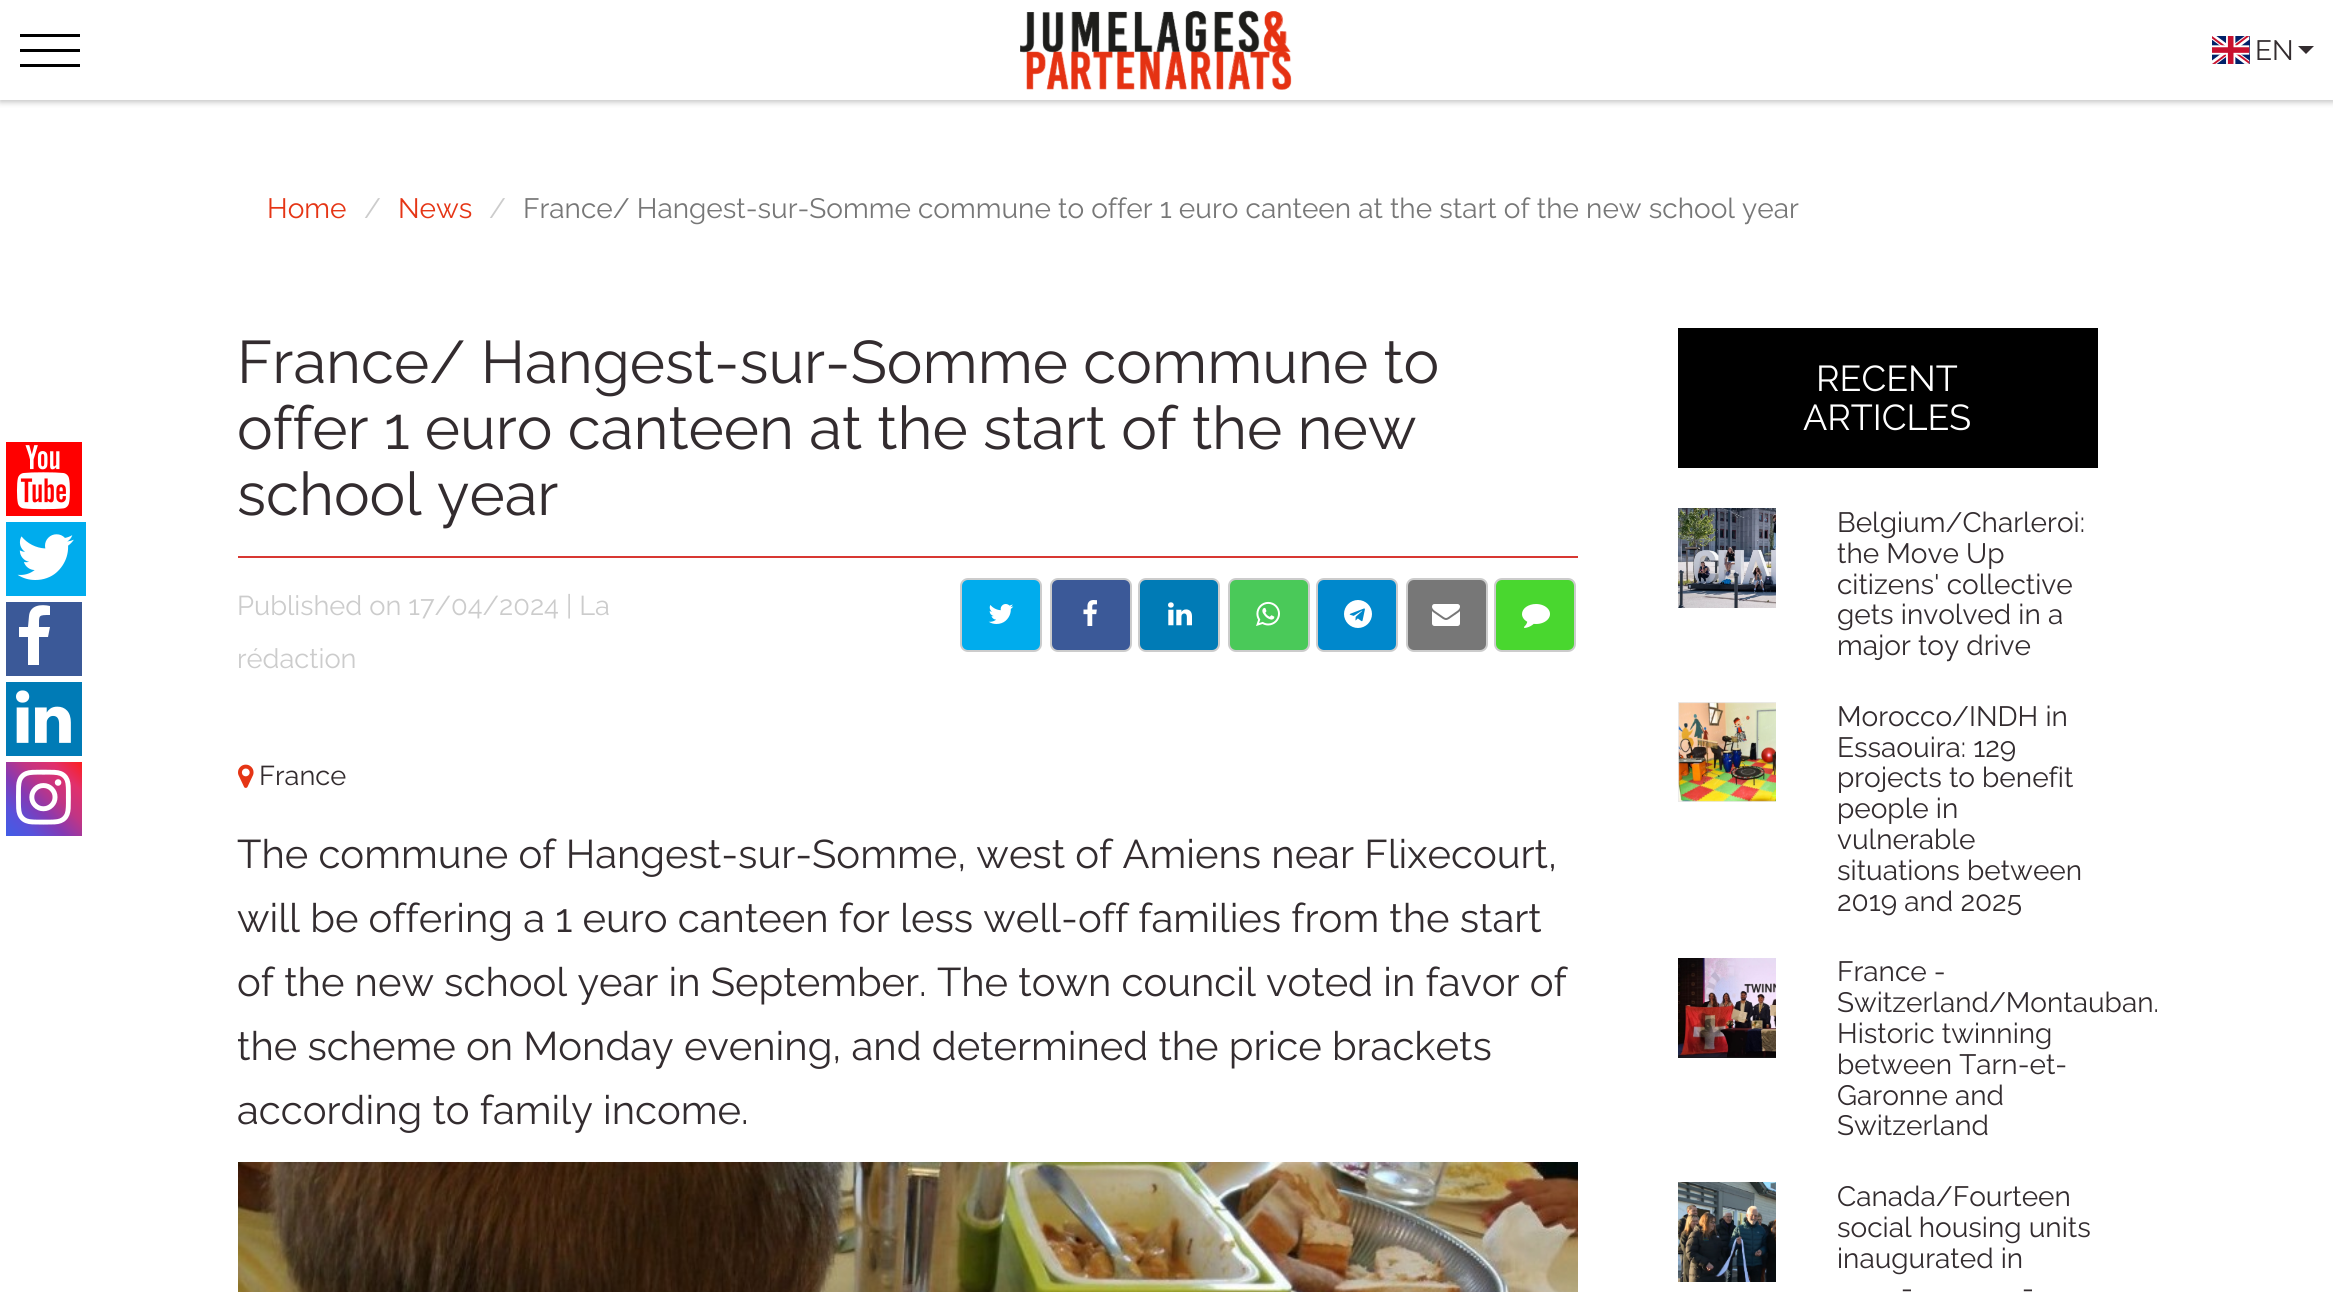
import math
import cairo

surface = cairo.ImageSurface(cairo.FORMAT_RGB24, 2333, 1292)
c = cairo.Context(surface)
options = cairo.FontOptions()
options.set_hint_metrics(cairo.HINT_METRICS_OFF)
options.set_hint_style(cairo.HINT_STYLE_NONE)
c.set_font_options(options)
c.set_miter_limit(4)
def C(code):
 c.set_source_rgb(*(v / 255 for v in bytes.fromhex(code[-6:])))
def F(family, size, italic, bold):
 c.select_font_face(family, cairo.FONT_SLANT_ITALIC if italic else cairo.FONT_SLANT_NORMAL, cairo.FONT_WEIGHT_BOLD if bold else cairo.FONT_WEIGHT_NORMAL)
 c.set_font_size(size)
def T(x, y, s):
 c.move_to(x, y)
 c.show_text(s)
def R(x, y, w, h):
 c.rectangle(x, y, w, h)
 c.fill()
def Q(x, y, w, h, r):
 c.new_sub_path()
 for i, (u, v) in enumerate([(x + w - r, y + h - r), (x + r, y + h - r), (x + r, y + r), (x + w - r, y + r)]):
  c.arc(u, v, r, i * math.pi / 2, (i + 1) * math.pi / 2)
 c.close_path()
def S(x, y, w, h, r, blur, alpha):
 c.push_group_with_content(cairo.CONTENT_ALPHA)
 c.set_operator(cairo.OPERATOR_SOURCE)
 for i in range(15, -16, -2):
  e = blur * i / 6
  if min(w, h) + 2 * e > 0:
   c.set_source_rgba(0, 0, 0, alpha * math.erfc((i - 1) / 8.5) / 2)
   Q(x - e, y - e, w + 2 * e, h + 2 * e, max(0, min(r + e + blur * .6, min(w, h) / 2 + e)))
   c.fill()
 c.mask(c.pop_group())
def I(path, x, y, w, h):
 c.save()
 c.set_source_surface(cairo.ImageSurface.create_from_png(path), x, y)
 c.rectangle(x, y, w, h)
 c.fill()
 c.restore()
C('ffffff')
c.paint()
c.save()
c.rectangle(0,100,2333,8)
c.clip()
C('c2c2c2')
S(0,2,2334,100,0,3,1)
c.restore()
C('000000')
R(20,34,60,3)
R(20,49,60,3)
R(20,64,60,3)
I('1.png',1020,10,272,80)
I('2.png',2212,36,38,28)
F('Raleway',28,0,0)
C('332c2f')
T(2255,60,'EN')
c.new_path()
c.move_to(2298,46)
c.line_to(2314,46)
c.line_to(2306,54)
c.close_path()
c.fill()
C('ff0000')
R(6,442,76,74)
I('3.png',16,445,54,65)
C('00aced')
R(6,522,80,74)
I('4.png',17,534,57,46)
C('3b5998')
R(6,602,76,74)
C('ffffff')
c.new_path()
c.move_to(50,606)
c.line_to(50,615)
c.curve_to(38,615,39,615,39,627)
c.line_to(50,627)
c.line_to(48,637)
c.line_to(39,637)
c.line_to(39,665)
c.line_to(28,665)
c.line_to(28,637)
c.line_to(19,637)
c.line_to(19,627)
c.line_to(28,627)
c.line_to(29,616)
c.curve_to(30,605,41,604,50,606)
c.close_path()
c.fill()
C('007bb6')
R(6,682,76,74)
I('5.png',16,690,55,53)
gradient = cairo.LinearGradient(6.5,837,82,762)
gradient.add_color_stop_rgba(0,0.251,0.365,0.902,1)
gradient.add_color_stop_rgba(.2,0.345,0.318,0.859,1)
gradient.add_color_stop_rgba(.4,0.514,0.227,0.706,1)
gradient.add_color_stop_rgba(.6,0.757,0.208,0.518,1)
gradient.add_color_stop_rgba(.8,0.882,0.188,0.424,1)
gradient.add_color_stop_rgba(1,0.992,0.114,0.114,1)
c.set_source(gradient)
R(6,762,76,74)
I('6.png',16,769,55,56)
C('e53515')
T(267,218,'Home')
C('cccccc')
T(364,218,'/')
C('e53515')
T(398,218,'News')
C('cccccc')
T(489,218,'/')
C('777777')
T(523,218,'France/ Hangest-sur-Somme commune to offer 1 euro canteen at the start of the new school year')
C('d83832')
R(238,556,1340,2)
F('Raleway',60,0,0)
C('332c2f')
T(237,383,'France/ Hangest-sur-Somme commune to')
T(237,449,'offer 1 euro canteen at the start of the new')
T(237,515,'school year')
F('Raleway',27.25,0,0)
C('cccccc')
T(237,615,'Published on 17/04/2024 | La')
T(237,668,'rédaction')
C('00aced')
Q(961,579,80,72,7)
c.fill_preserve()
C('cccccc')
c.stroke()
I('7.png',988,604,26,20)
C('3b5998')
Q(1051,579,80,72,7)
c.fill_preserve()
C('cccccc')
c.stroke()
I('8.png',1083,600,14,26)
C('007bb6')
Q(1139,579,80,72,7)
c.fill_preserve()
C('cccccc')
c.stroke()
I('9.png',1168,602,24,24)
C('4ac959')
Q(1229,579,80,72,7)
c.fill_preserve()
C('cccccc')
c.stroke()
I('10.png',1256,601,24,25)
C('0088cc')
Q(1317,579,80,72,7)
c.fill_preserve()
C('cccccc')
c.stroke()
I('11.png',1344,600,28,28)
C('777777')
Q(1407,579,80,72,7)
c.fill_preserve()
C('cccccc')
c.stroke()
I('12.png',1432,604,28,22)
C('49d72f')
Q(1495,579,80,72,7)
c.fill_preserve()
C('cccccc')
c.stroke()
I('13.png',1522,604,28,24)
I('14.png',238,764,16,24)
C('332c2f')
T(259,785,'France')
F('Raleway',40,0,0)
T(237,868,'The commune of Hangest-sur-Somme, west of Amiens near Flixecourt,')
T(237,932,'will be offering a 1 euro canteen for less well-off families from the start')
T(237,996,'of the new school year in September. The town council voted in favor of')
T(237,1060,'the scheme on Monday evening, and determined the price brackets')
T(237,1124,'according to family income.')
I('15.png',238,1162,1340,130)
C('000000')
R(1678,328,420,140)
F('Raleway',36,0,0)
C('ffffff')
T(1816,391,'RECENT')
T(1803,430,'ARTICLES')
I('16.png',1678,508,98,100)
F('Raleway',28,0,0)
C('332c2f')
T(1837,532,'Belgium/Charleroi:')
T(1837,563,'the Move Up')
T(1837,594,'citizens\' collective')
T(1837,624,'gets involved in a')
T(1837,655,'major toy drive')
I('17.png',1678,702,98,100)
T(1837,726,'Morocco/INDH in')
T(1837,757,'Essaouira: 129')
T(1837,787,'projects to benefit')
T(1837,818,'people in')
T(1837,849,'vulnerable')
T(1837,880,'situations between')
T(1837,911,'2019 and 2025')
I('18.png',1678,958,98,100)
T(1837,981,'France -')
T(1837,1012,'Switzerland/Montauban.')
T(1837,1043,'Historic twinning')
T(1837,1074,'between Tarn-et-')
T(1837,1105,'Garonne and')
T(1837,1135,'Switzerland')
I('19.png',1678,1182,98,100)
T(1837,1206,'Canada/Fourteen')
T(1837,1237,'social housing units')
T(1837,1268,'inaugurated in')
T(1901,1298,'-')
T(2022,1298,'-')
surface.write_to_png('o.png')
